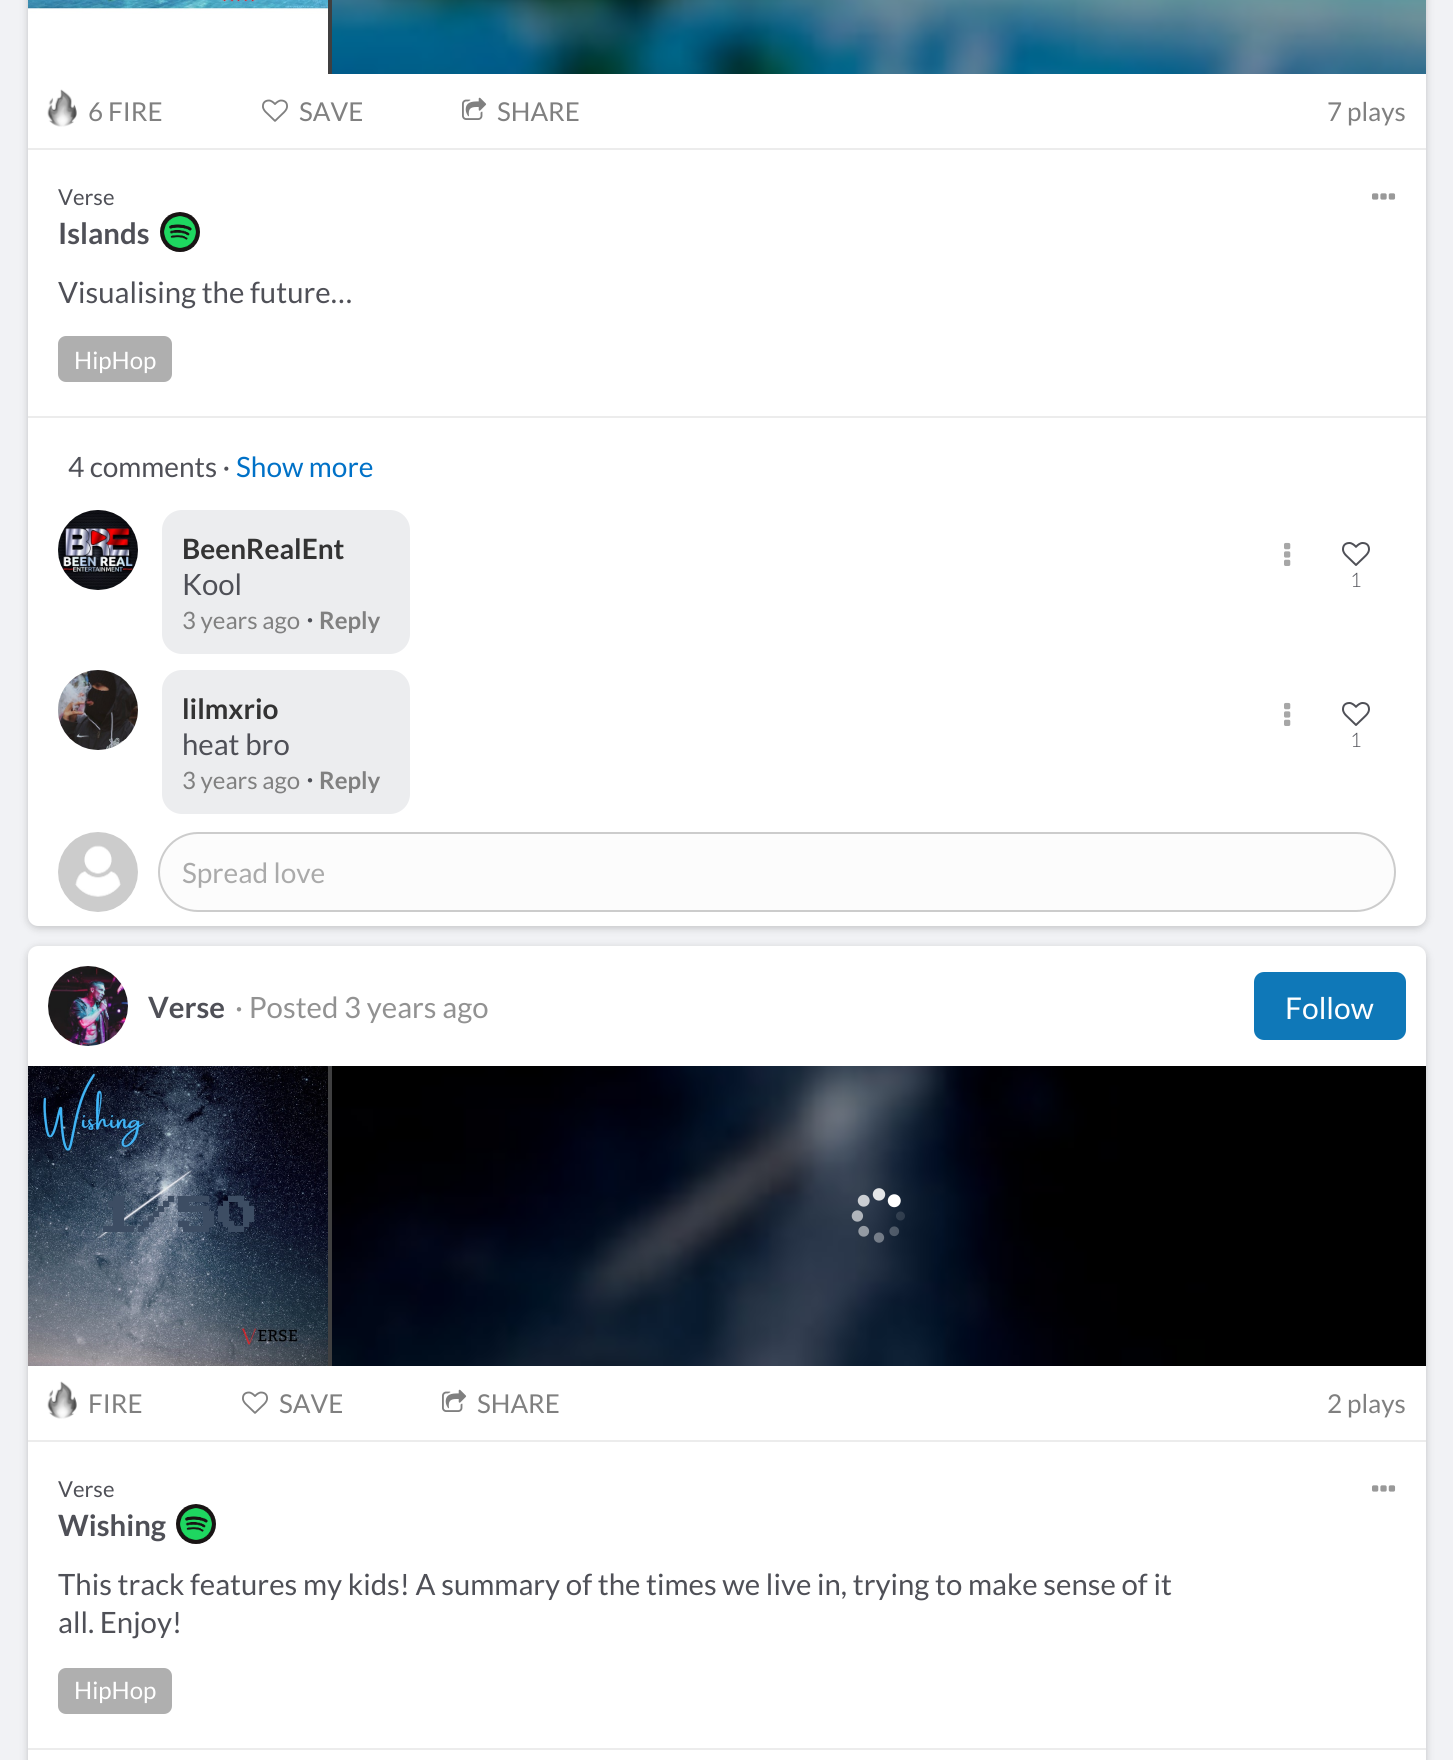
import math
import cairo

surface = cairo.ImageSurface(cairo.FORMAT_RGB24, 1453, 1760)
c = cairo.Context(surface)
options = cairo.FontOptions()
options.set_hint_metrics(cairo.HINT_METRICS_OFF)
options.set_hint_style(cairo.HINT_STYLE_NONE)
c.set_font_options(options)
c.set_miter_limit(4)
def C(code):
 c.set_source_rgb(*(v / 255 for v in bytes.fromhex(code[-6:])))
def F(family, size, italic, bold):
 c.select_font_face(family, cairo.FONT_SLANT_ITALIC if italic else cairo.FONT_SLANT_NORMAL, cairo.FONT_WEIGHT_BOLD if bold else cairo.FONT_WEIGHT_NORMAL)
 c.set_font_size(size)
def T(x, y, s):
 c.move_to(x, y)
 c.show_text(s)
def R(x, y, w, h):
 c.rectangle(x, y, w, h)
 c.fill()
def Q(x, y, w, h, r):
 c.new_sub_path()
 for i, (u, v) in enumerate([(x + w - r, y + h - r), (x + r, y + h - r), (x + r, y + r), (x + w - r, y + r)]):
  c.arc(u, v, r, i * math.pi / 2, (i + 1) * math.pi / 2)
 c.close_path()
def S(x, y, w, h, r, blur, alpha):
 c.push_group_with_content(cairo.CONTENT_ALPHA)
 c.set_operator(cairo.OPERATOR_SOURCE)
 for i in range(15, -16, -2):
  e = blur * i / 6
  if min(w, h) + 2 * e > 0:
   c.set_source_rgba(0, 0, 0, alpha * math.erfc((i - 1) / 8.5) / 2)
   Q(x - e, y - e, w + 2 * e, h + 2 * e, max(0, min(r + e + blur * .6, min(w, h) / 2 + e)))
   c.fill()
 c.mask(c.pop_group())
def I(path, x, y, w, h):
 c.save()
 c.set_source_surface(cairo.ImageSurface.create_from_png(path), x, y)
 c.rectangle(x, y, w, h)
 c.fill()
 c.restore()
C('f1f2f5')
c.paint()
C('000000')
S(28,-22,1398,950,10,4,.2)
C('3f3f40')
R(328,0,4,74)
I('1.png',28,0,300,74)
I('2.png',332,0,1094,74)
C('ffffff')
R(28,74,1398,74)
C('ececec')
R(28,148,1398,2)
I('3.png',47,89,30,38)
F('Lato',26,0,0)
C('808080')
T(88,121,'6 FIRE')
I('4.png',262,99,26,23)
T(299,121,'SAVE')
I('5.png',462,97,25,23)
T(497,121,'SHARE')
T(1327,121,'7 plays')
C('ffffff')
R(28,150,1398,266)
F('Lato',22,0,0)
C('4f5057')
T(58,205,'Verse')
F('Lato',29.35,0,1)
T(58,244,'Islands')
I('6.png',160,212,40,40)
F('Lato',29.35,0,0)
T(58,303,'Visualising the future…')
C('afafaf')
Q(59,337,112,44,7)
c.fill_preserve()
c.stroke()
F('Lato',24,0,0)
C('ffffff')
T(74,369,'HipHop')
I('7.png',1372,193,24,7)
c.new_path()
c.move_to(28,416)
c.line_to(1426,416)
c.line_to(1426,916)
c.curve_to(1426,921.5,1421.5,926,1416,926)
c.line_to(38,926)
c.curve_to(32.5,926,28,921.5,28,916)
c.close_path()
c.fill()
C('ececec')
R(28,416,1398,2)
F('Lato',28,0,0)
C('4f5057')
T(68,477,'4 comments ·')
C('0071c7')
T(236,477,'Show more')
C('cccccc')
c.new_path()
c.arc(98,550,40,0,2 * math.pi)
c.fill()
I('8.png',58,510,80,80)
C('ecedef')
Q(162,510,248,144,20)
c.fill()
F('Lato',28,0,1)
C('333333')
T(182,559,'BeenRealEnt')
F('Lato',29.35,0,0)
C('4f5057')
T(182,595,'Kool')
F('Lato',24,0,0)
C('808080')
T(182,629,'3 years ago')
F('Lato',29.35,0,0)
C('4f5057')
T(306,629,'·')
F('Lato',24,0,1)
C('808080')
T(319,629,'Reply')
I('9.png',1284,542,7,24)
I('10.png',1342,542,28,24)
F('Lato Light',20,0,0)
C('4f5057')
T(1350,587,'1')
C('cccccc')
c.new_path()
c.arc(98,710,40,0,2 * math.pi)
c.fill()
I('11.png',58,670,80,80)
C('ecedef')
Q(162,670,248,144,20)
c.fill()
F('Lato',28,0,1)
C('333333')
T(182,719,'lilmxrio')
F('Lato',29.35,0,0)
C('4f5057')
T(182,755,'heat bro')
F('Lato',24,0,0)
C('808080')
T(182,789,'3 years ago')
F('Lato',29.35,0,0)
C('4f5057')
T(306,789,'·')
F('Lato',24,0,1)
C('808080')
T(319,789,'Reply')
I('9.png',1284,702,7,24)
I('10.png',1342,702,28,24)
F('Lato Light',20,0,0)
C('4f5057')
T(1350,747,'1')
I('12.png',58,832,80,80)
C('fcfcfc')
Q(159,833,1236,78,39)
c.fill_preserve()
C('cccccc')
c.stroke()
F('Lato',28,0,0)
C('aaaaaa')
T(182,883,'Spread love')
C('000000')
S(28,948,1398,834,10,4,.2)
C('ffffff')
c.new_path()
c.move_to(38,946)
c.line_to(1416,946)
c.curve_to(1421.5,946,1426,950.5,1426,956)
c.line_to(1426,1066)
c.line_to(28,1066)
c.line_to(28,956)
c.curve_to(28,950.5,32.5,946,38,946)
c.close_path()
c.fill()
I('13.png',48,966,80,80)
F('Lato',29.35,0,1)
C('4f5057')
T(148,1018,'Verse')
F('Lato',29.35,0,0)
C('929292')
T(235,1018,'· Posted 3 years ago')
C('0f78b8')
Q(1255,973,150,66,9)
c.fill_preserve()
c.stroke()
F('Lato',30,0,0)
C('ffffff')
T(1285,1019,'Follow')
C('3f3f40')
R(328,1066,4,300)
I('14.png',28,1066,300,300)
F('Press Start 2P',40,0,1)
C('3d4d63')
T(98,1237,'1/50')
I('15.png',332,1066,1094,300)
I('16.png',851,1188,54,55)
C('ffffff')
R(28,1366,1398,74)
C('ececec')
R(28,1440,1398,2)
I('3.png',47,1381,30,38)
F('Lato',26,0,0)
C('808080')
T(88,1413,'FIRE')
I('4.png',242,1391,26,23)
T(279,1413,'SAVE')
I('5.png',442,1389,25,23)
T(477,1413,'SHARE')
T(1327,1413,'2 plays')
C('ffffff')
R(28,1442,1398,306)
F('Lato',22,0,0)
C('4f5057')
T(58,1497,'Verse')
F('Lato',29.35,0,1)
T(58,1536,'Wishing')
I('6.png',176,1504,40,40)
F('Lato',29.35,0,0)
T(58,1595,'This track features my kids! A summary of the times we live in, trying to make sense of it')
T(58,1633,'all. Enjoy!')
C('afafaf')
Q(59,1669,112,44,7)
c.fill_preserve()
c.stroke()
F('Lato',24,0,0)
C('ffffff')
T(74,1699,'HipHop')
I('7.png',1372,1485,24,7)
R(28,1750,1398,10)
C('ececec')
R(28,1748,1398,2)
surface.write_to_png('o.png')
